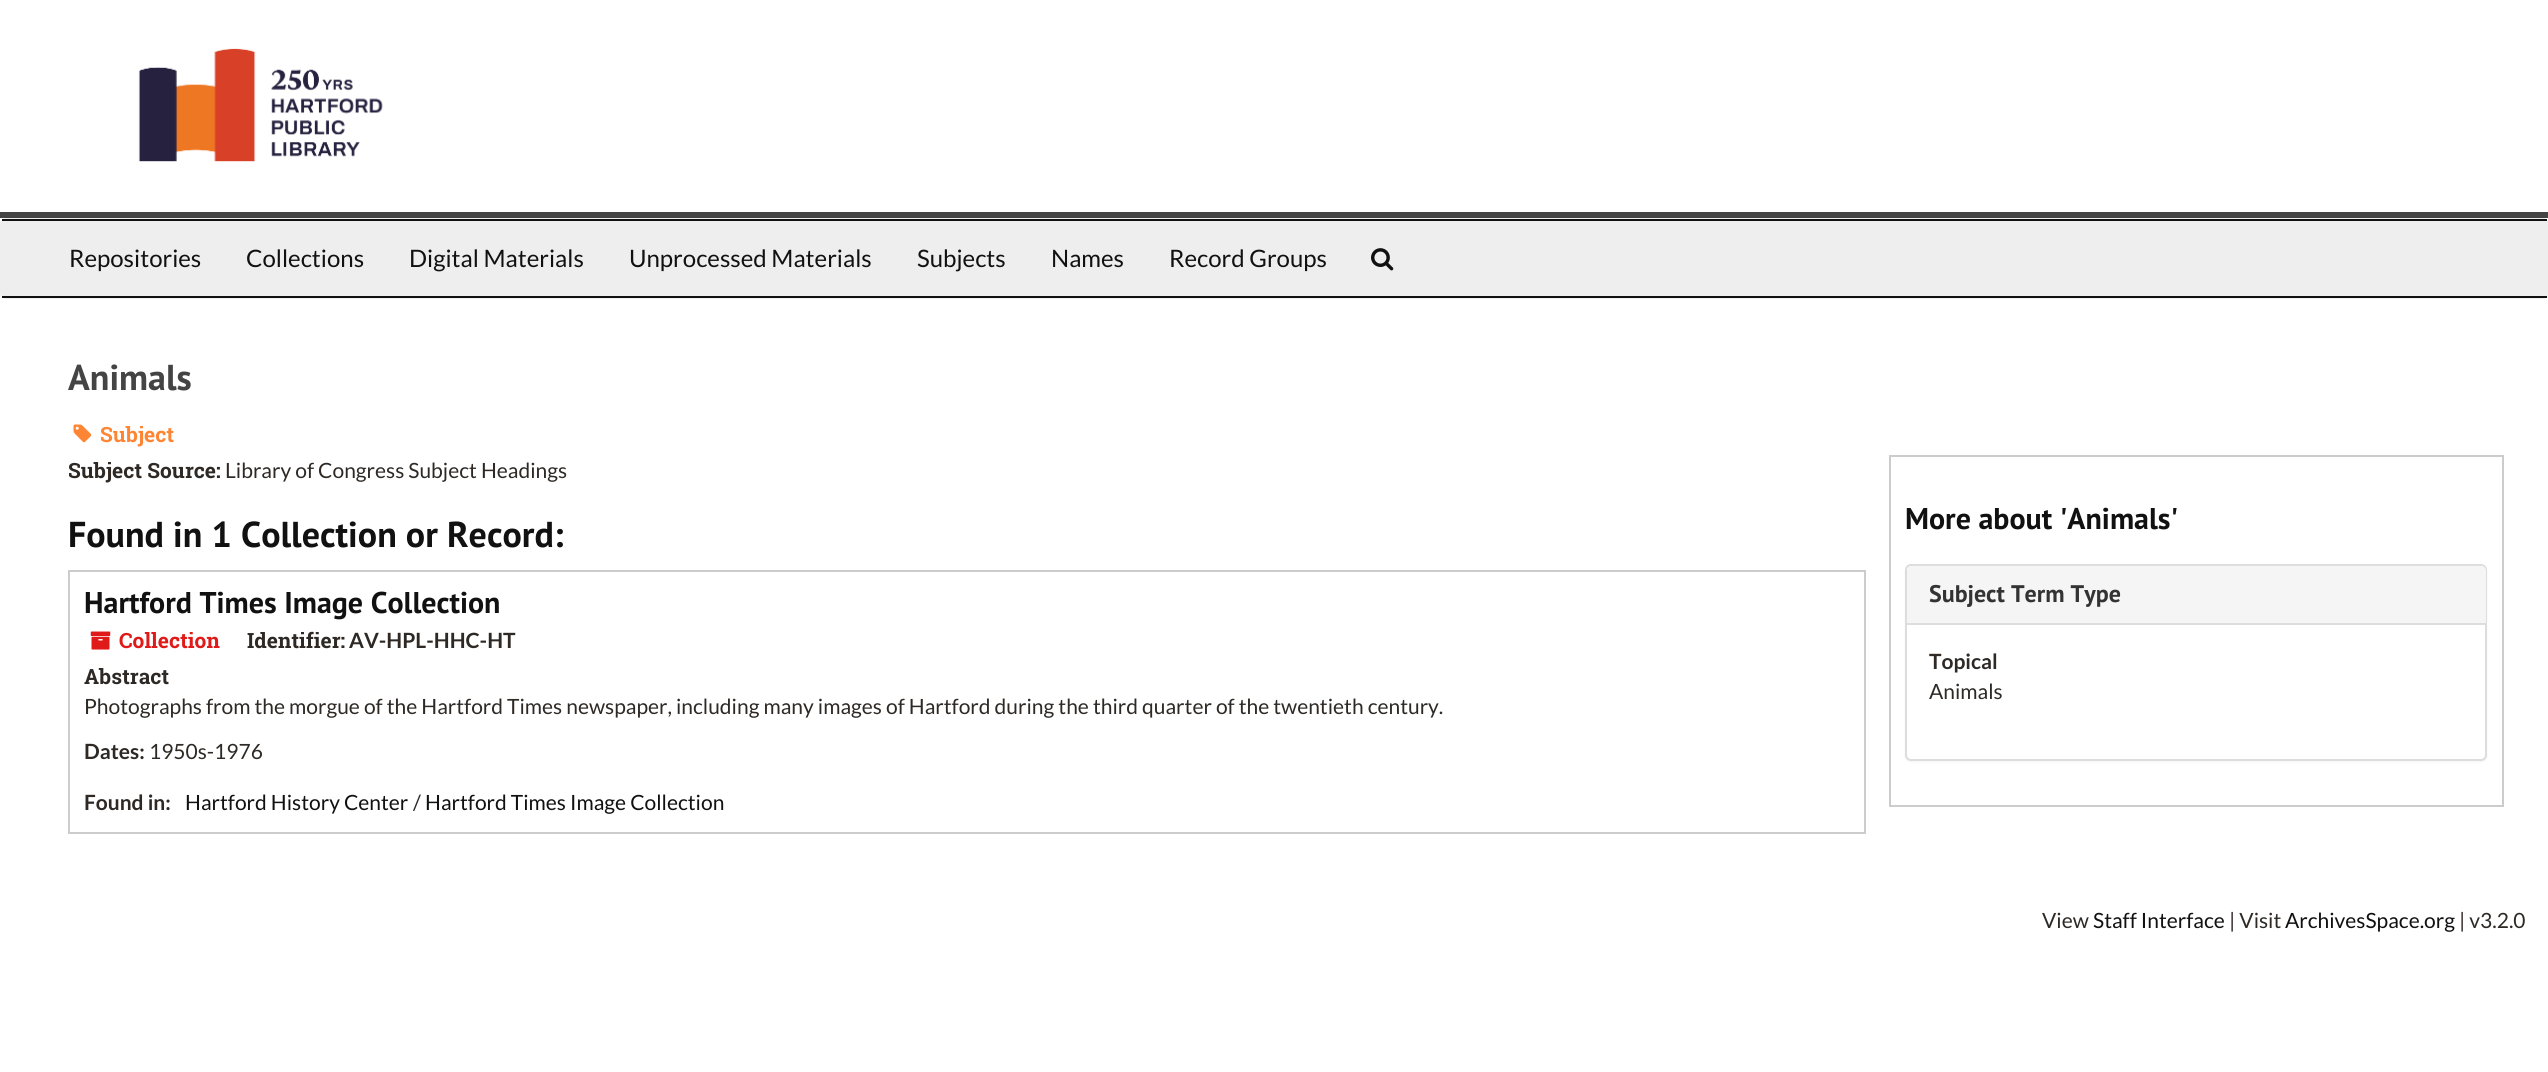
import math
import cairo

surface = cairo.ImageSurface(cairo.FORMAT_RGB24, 2548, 1072)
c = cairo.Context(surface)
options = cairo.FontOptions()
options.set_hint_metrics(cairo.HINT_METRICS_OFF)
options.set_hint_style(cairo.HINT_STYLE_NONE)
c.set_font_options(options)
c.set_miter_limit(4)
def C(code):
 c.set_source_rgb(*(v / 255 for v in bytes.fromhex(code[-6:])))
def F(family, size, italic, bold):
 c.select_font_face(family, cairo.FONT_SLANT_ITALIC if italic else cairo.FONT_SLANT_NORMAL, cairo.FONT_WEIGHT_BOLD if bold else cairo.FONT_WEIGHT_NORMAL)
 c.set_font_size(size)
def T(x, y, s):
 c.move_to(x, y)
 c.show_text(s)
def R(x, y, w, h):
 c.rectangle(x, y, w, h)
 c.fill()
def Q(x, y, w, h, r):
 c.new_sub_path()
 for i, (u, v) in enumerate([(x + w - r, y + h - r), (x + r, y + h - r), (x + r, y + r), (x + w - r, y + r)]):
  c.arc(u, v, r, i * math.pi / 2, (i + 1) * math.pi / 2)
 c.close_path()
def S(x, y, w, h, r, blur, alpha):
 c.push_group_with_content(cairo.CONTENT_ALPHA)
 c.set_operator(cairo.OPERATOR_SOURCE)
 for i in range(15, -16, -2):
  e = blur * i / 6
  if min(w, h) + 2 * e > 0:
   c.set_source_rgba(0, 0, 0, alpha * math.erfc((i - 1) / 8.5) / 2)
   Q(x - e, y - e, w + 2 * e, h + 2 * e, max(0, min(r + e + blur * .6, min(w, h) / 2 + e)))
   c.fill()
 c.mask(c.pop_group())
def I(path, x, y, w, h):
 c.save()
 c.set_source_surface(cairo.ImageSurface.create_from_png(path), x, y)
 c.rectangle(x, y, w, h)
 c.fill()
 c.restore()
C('ffffff')
c.paint()
C('444444')
R(0,212,2548,6)
I('1.png',138,48,245,114)
C('eeeeee')
Q(1,219,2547,79,5)
c.fill_preserve()
c.stroke()
C('111111')
R(2,219,2545,2)
R(2,296,2545,2)
F('Lato',24,0,0)
T(69,267,'Repositories')
T(246,267,'Collections')
T(409,267,'Digital Materials')
T(629,267,'Unprocessed Materials')
T(917,267,'Subjects')
T(1051,267,'Names')
T(1169,267,'Record Groups')
I('2.png',1371,248,23,23)
F('PT Sans',36,0,1)
C('444444')
T(68,390,'Animals')
I('3.png',73,424,19,19)
F('Roboto Slab',21,0,1)
C('fe8534')
T(100,442,'Subject')
C('2e2925')
T(68,478,'Subject Source:')
F('Lato',21,0,0)
T(225,478,'Library of Congress Subject Headings')
F('PT Sans',36,0,1)
C('111111')
T(68,547,'Found in 1 Collection or Record:')
c.rectangle(69,571,1796,262)
C('cccccc')
c.stroke()
F('PT Sans',30,0,1)
C('111111')
T(84,613,'Hartford Times Image Collection')
I('4.png',90,631,21,19)
F('Roboto Slab',21,0,1)
C('e01919')
T(119,648,'Collection')
C('2e2925')
T(247,648,'Identifier:')
F('Lato',21,0,1)
T(349,648,'AV-HPL-HHC-HT')
F('Roboto Slab',21,0,1)
T(84,684,'Abstract')
F('Lato',21,0,0)
T(84,714,'Photographs from the morgue of the Hartford Times newspaper, including many images of Hartford during the third quarter of the twentieth century.')
F('Lato',21,0,1)
T(84,759,'Dates:')
F('Lato',21,0,0)
T(149,759,'1950s-1976')
F('Lato',21,0,1)
T(84,810,'Found in:')
F('Lato',21,0,0)
C('111111')
T(185,810,'Hartford History Center')
C('2e2925')
T(413,810,'/')
C('111111')
T(425,810,'Hartford Times Image Collection')
c.rectangle(1890,456,613,350)
C('cccccc')
c.stroke()
F('PT Sans',30,0,1)
C('111111')
T(1905,529,'More about \'Animals\'')
C('000000')
S(1905,566,582,196,6,1,.05)
C('ffffff')
Q(1906,565,580,195,5)
c.fill_preserve()
C('dddddd')
c.stroke()
C('f5f5f5')
c.new_path()
c.move_to(1912,566)
c.line_to(2481,566)
c.curve_to(2484,566,2486,568,2486,571)
c.line_to(2486,623)
c.line_to(1907,623)
c.line_to(1907,571)
c.curve_to(1907,568,1909,566,1912,566)
c.close_path()
c.fill()
F('PT Sans',24,0,1)
C('333333')
T(1929,602,'Subject Term Type')
C('dddddd')
R(1907,623,579,2)
F('Lato',21,0,1)
C('2e2925')
T(1929,669,'Topical')
F('Lato',21,0,0)
T(1929,699,'Animals')
T(2042,928,'View')
C('111111')
T(2093,928,'Staff Interface')
C('2e2925')
T(2229,928,'| Visit')
C('111111')
T(2285,928,'ArchivesSpace.org')
C('2e2925')
T(2459,928,'| v3.2.0')
surface.write_to_png('o.png')
